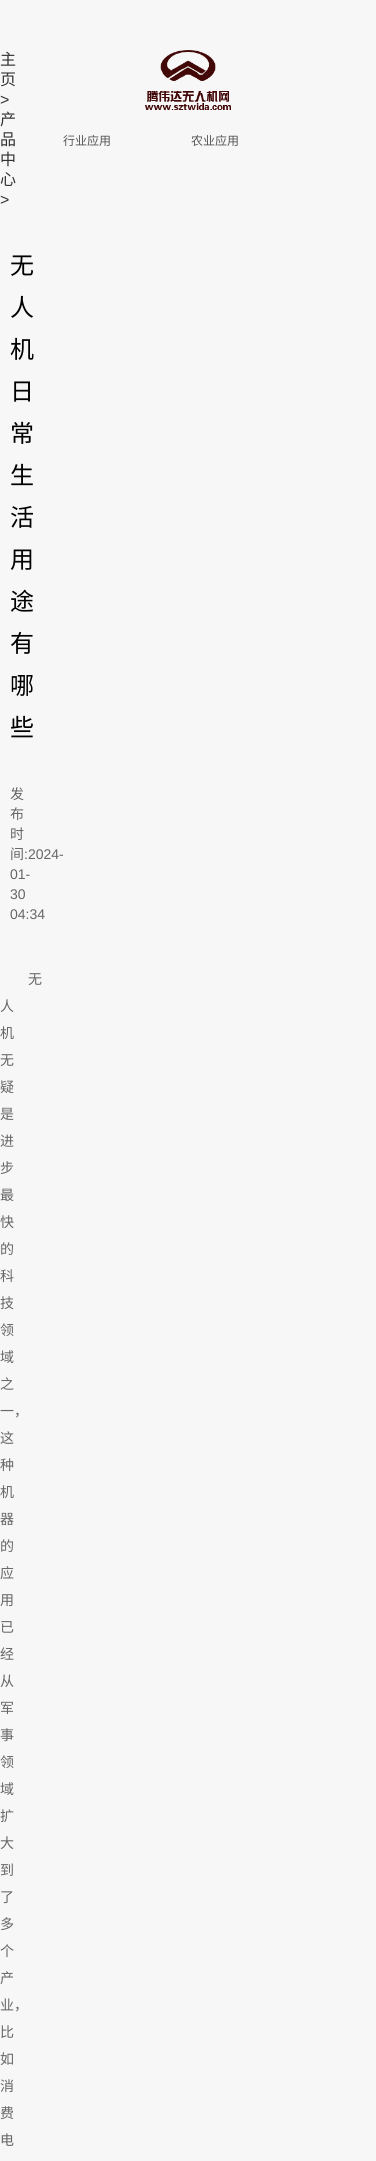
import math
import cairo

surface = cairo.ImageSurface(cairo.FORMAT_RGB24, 376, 2161)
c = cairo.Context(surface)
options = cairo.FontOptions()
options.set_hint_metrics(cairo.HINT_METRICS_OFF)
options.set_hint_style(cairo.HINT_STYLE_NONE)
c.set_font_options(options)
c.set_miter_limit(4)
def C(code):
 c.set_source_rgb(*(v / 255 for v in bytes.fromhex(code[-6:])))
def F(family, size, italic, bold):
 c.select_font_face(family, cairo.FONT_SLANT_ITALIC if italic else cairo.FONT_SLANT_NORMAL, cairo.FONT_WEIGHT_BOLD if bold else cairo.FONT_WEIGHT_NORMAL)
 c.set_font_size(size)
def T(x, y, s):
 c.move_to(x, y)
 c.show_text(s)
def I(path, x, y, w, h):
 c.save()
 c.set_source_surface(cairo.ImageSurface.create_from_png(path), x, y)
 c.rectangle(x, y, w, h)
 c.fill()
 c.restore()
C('f7f7f7')
c.paint()
F('Noto Sans CJK SC',16,0,0)
C('333333')
T(0,65,'主')
T(0,85,'页')
F('Liberation Sans',16,0,0)
T(0,105,'>')
F('Noto Sans CJK SC',16,0,0)
T(0,125,'产')
T(0,145,'品')
T(0,165,'中')
T(0,185,'心')
F('Liberation Sans',16,0,0)
T(0,205,'>')
F('Noto Sans CJK SC',24,0,0)
C('000000')
T(10,274,'无')
T(10,316,'人')
T(10,358,'机')
T(10,400,'日')
T(10,442,'常')
T(10,484,'生')
T(10,526,'活')
T(10,568,'用')
T(10,610,'途')
T(10,652,'有')
T(10,694,'哪')
T(10,736,'些')
F('Noto Sans CJK SC',14,0,0)
C('666666')
T(10,799,'发')
T(10,819,'布')
T(10,839,'时')
T(10,859,'间')
F('Liberation Sans',14,0,0)
T(24,859,':2024-')
T(10,879,'01-')
T(10,899,'30')
T(10,919,'04:34')
F('Noto Sans CJK SC',14,0,0)
T(28,984,'无')
T(0,1011,'人')
T(0,1038,'机')
T(0,1065,'无')
T(0,1092,'疑')
T(0,1119,'是')
T(0,1146,'进')
T(0,1173,'步')
T(0,1200,'最')
T(0,1227,'快')
T(0,1254,'的')
T(0,1281,'科')
T(0,1308,'技')
T(0,1335,'领')
T(0,1362,'域')
T(0,1389,'之')
T(0,1416,'一，')
T(0,1443,'这')
T(0,1470,'种')
T(0,1497,'机')
T(0,1524,'器')
T(0,1551,'的')
T(0,1578,'应')
T(0,1605,'用')
T(0,1632,'已')
T(0,1659,'经')
T(0,1686,'从')
T(0,1713,'军')
T(0,1740,'事')
T(0,1767,'领')
T(0,1794,'域')
T(0,1821,'扩')
T(0,1848,'大')
T(0,1875,'到')
T(0,1902,'了')
T(0,1929,'多')
T(0,1956,'个')
T(0,1983,'产')
T(0,2010,'业，')
T(0,2037,'比')
T(0,2064,'如')
T(0,2091,'消')
T(0,2118,'费')
T(0,2145,'电')
I('1.png',145,50,86,60)
F('Noto Sans CJK SC',12,0,0)
C('555555')
T(63,145,'行业应用')
T(191,145,'农业应用')
surface.write_to_png('o.png')
